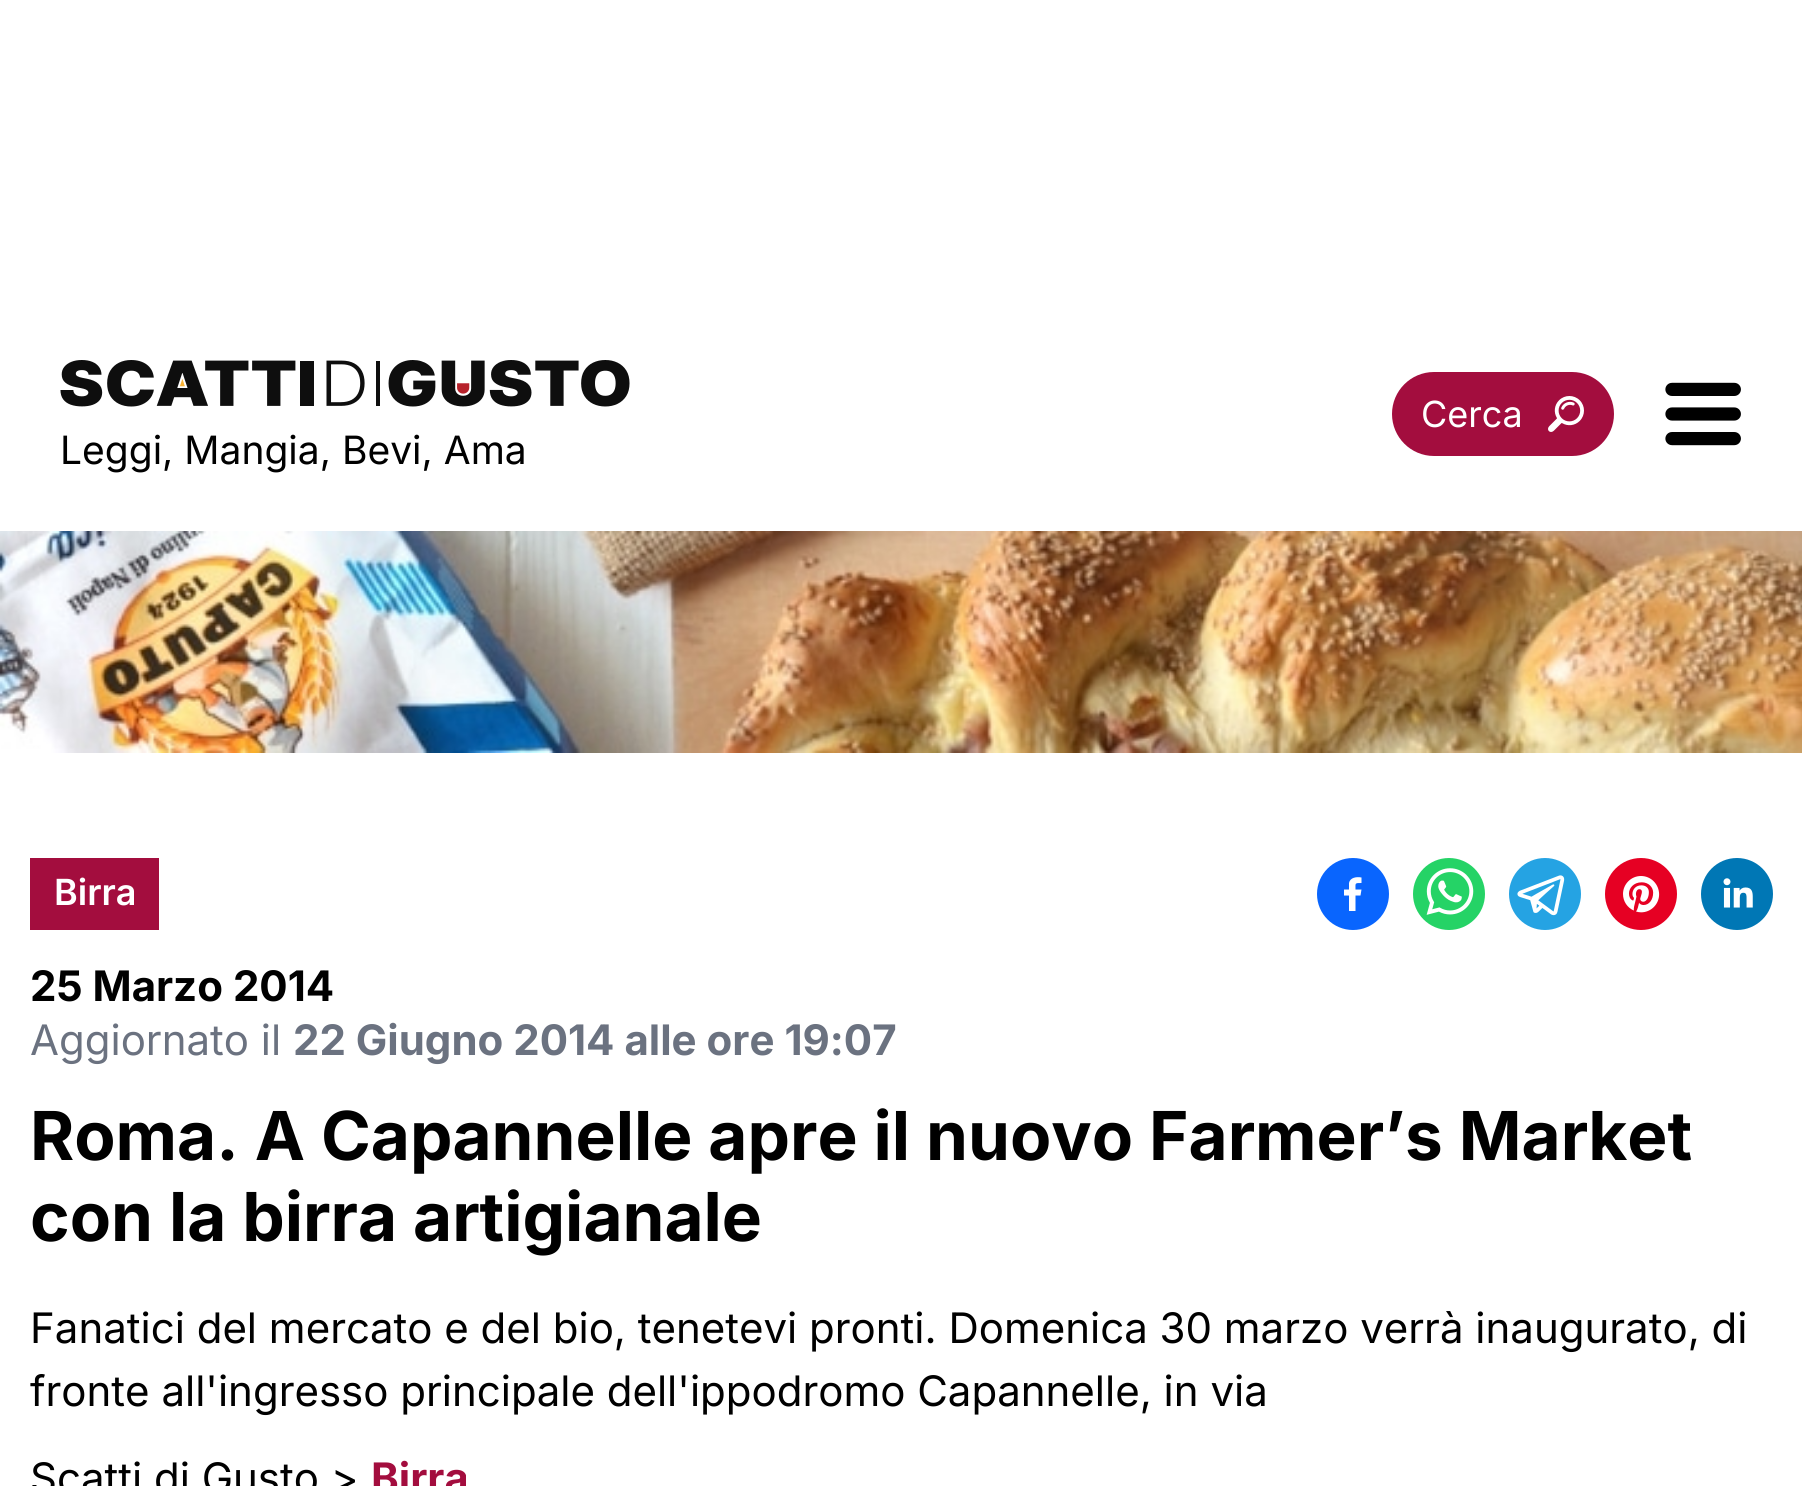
import math
import cairo

surface = cairo.ImageSurface(cairo.FORMAT_RGB24, 1802, 1486)
c = cairo.Context(surface)
options = cairo.FontOptions()
options.set_hint_metrics(cairo.HINT_METRICS_OFF)
options.set_hint_style(cairo.HINT_STYLE_NONE)
c.set_font_options(options)
c.set_miter_limit(4)
def C(code):
 c.set_source_rgb(*(v / 255 for v in bytes.fromhex(code[-6:])))
def F(family, size, italic, bold):
 c.select_font_face(family, cairo.FONT_SLANT_ITALIC if italic else cairo.FONT_SLANT_NORMAL, cairo.FONT_WEIGHT_BOLD if bold else cairo.FONT_WEIGHT_NORMAL)
 c.set_font_size(size)
def T(x, y, s):
 c.move_to(x, y)
 c.show_text(s)
def R(x, y, w, h):
 c.rectangle(x, y, w, h)
 c.fill()
def Q(x, y, w, h, r):
 c.new_sub_path()
 for i, (u, v) in enumerate([(x + w - r, y + h - r), (x + r, y + h - r), (x + r, y + r), (x + w - r, y + r)]):
  c.arc(u, v, r, i * math.pi / 2, (i + 1) * math.pi / 2)
 c.close_path()
def I(path, x, y, w, h):
 c.save()
 c.set_source_surface(cairo.ImageSurface.create_from_png(path), x, y)
 c.rectangle(x, y, w, h)
 c.fill()
 c.restore()
C('ffffff')
c.paint()
C('a30d3e')
Q(1392,372,222,84,42)
c.fill()
F('Inter',36,0,0)
C('ffffff')
T(1421,427,'Cerca')
I('1.png',1548,396,36,36)
I('2.png',1665,382,76,64)
I('3.png',60,360,570,47)
F('Inter',39,0,0)
C('000000')
T(60,464,'Leggi, Mangia, Bevi, Ama')
I('4.png',0,531,1802,222)
C('a30d3e')
R(30,858,129,72)
F('Inter SemiBold',36,0,0)
C('ffffff')
T(54,905,'Birra')
C('0965fe')
c.new_path()
c.arc(1353,894,36,0,2 * math.pi)
c.fill()
C('ffffff')
c.new_path()
c.move_to(1355.5,911)
c.line_to(1355.5,895.5)
c.line_to(1360.5,895.5)
c.line_to(1361.5,889.5)
c.line_to(1355.5,889.5)
c.curve_to(1355.5,883,1354.5,883,1361.5,883)
c.line_to(1361.5,877.5)
c.curve_to(1356.5,876.5,1350,877.5,1349,883)
c.line_to(1349,889.5)
c.line_to(1344,889.5)
c.line_to(1344,895.5)
c.line_to(1349,895.5)
c.line_to(1349,911)
c.close_path()
c.fill()
I('5.png',1413,858,72,72)
I('6.png',1509,858,72,72)
I('7.png',1605,858,72,72)
I('8.png',1701,858,72,72)
F('Inter',42,0,1)
C('000000')
T(30,1001,'25 Marzo 2014')
F('Inter',42,0,0)
C('6b7280')
T(30,1055,'Aggiornato il')
F('Inter',42,0,1)
T(293,1055,'22 Giugno 2014 alle ore 19:07')
F('Inter',67.4,0,1)
C('000000')
T(30,1160,'Roma. A Capannelle apre il nuovo Farmer’s Market')
T(30,1241,'con la birra artigianale')
F('Inter',42,0,0)
T(30,1343,'Fanatici del mercato e del bio, tenetevi pronti. Domenica 30 marzo verrà inaugurato, di')
T(30,1406,'fronte all\'ingresso principale dell\'ippodromo Capannelle, in via')
T(30,1493,'Scatti di Gusto >')
F('Inter',42,0,1)
C('a30d3e')
T(371,1493,'Birra')
surface.write_to_png('o.png')
